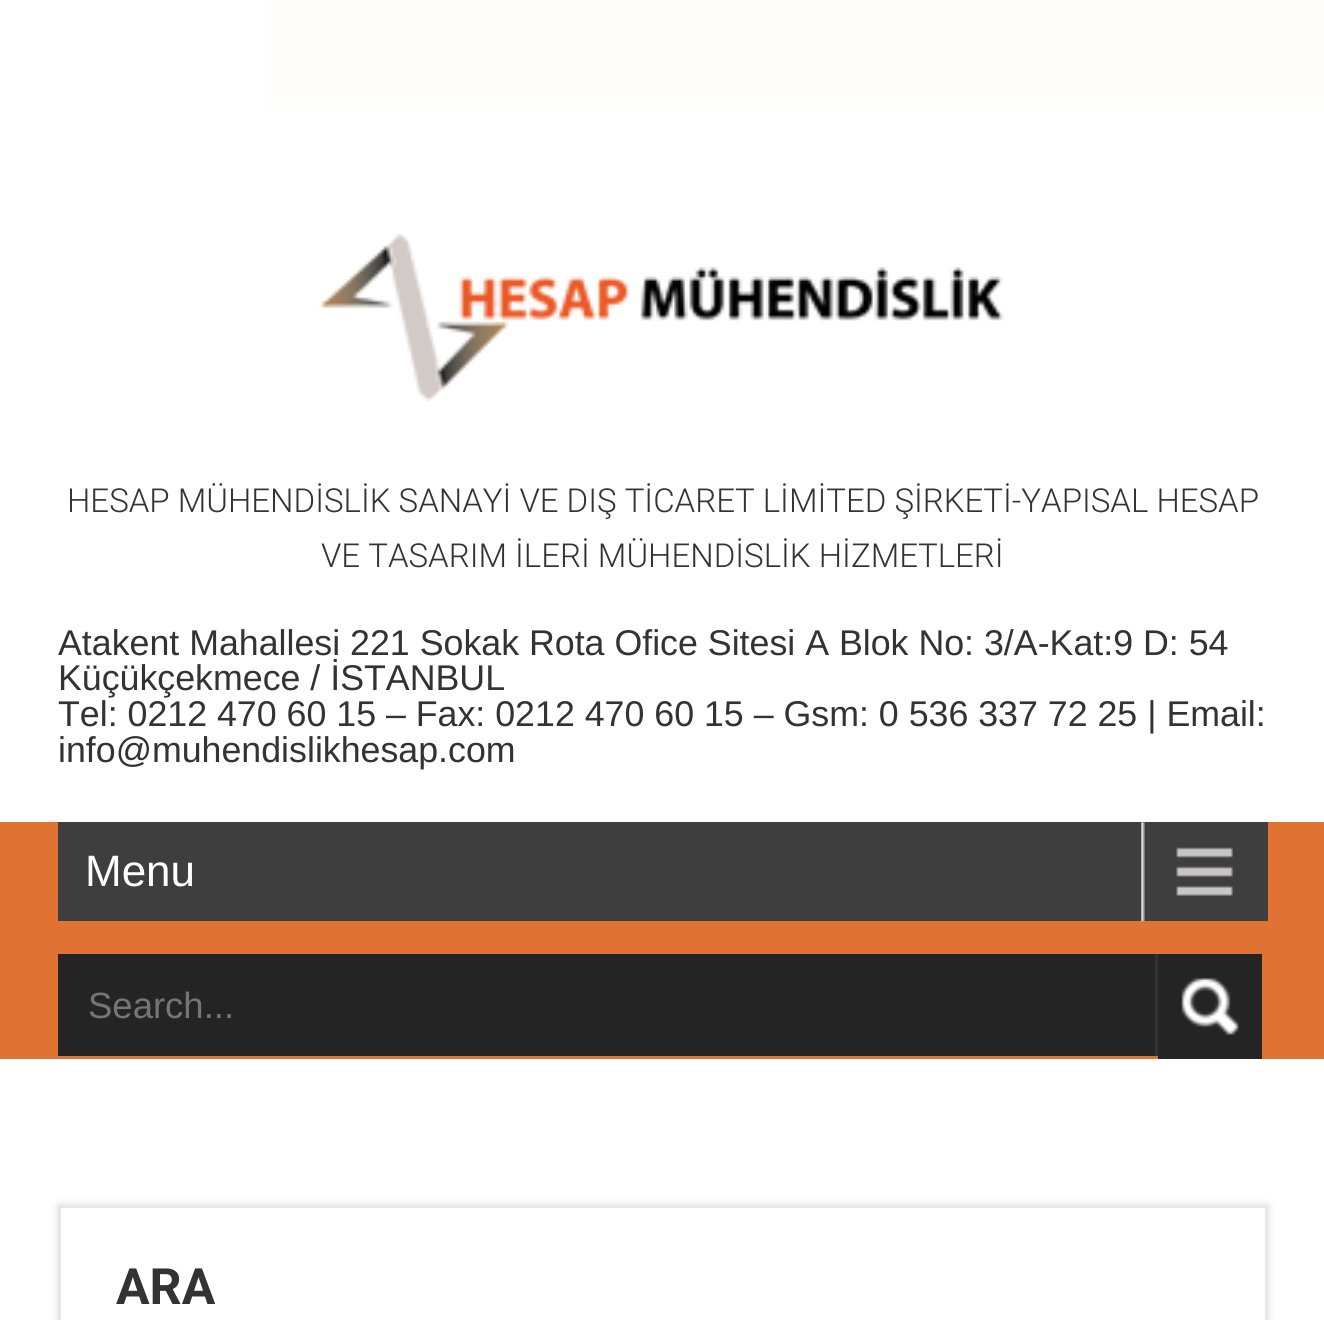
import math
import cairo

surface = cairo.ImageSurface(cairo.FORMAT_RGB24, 1324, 1320)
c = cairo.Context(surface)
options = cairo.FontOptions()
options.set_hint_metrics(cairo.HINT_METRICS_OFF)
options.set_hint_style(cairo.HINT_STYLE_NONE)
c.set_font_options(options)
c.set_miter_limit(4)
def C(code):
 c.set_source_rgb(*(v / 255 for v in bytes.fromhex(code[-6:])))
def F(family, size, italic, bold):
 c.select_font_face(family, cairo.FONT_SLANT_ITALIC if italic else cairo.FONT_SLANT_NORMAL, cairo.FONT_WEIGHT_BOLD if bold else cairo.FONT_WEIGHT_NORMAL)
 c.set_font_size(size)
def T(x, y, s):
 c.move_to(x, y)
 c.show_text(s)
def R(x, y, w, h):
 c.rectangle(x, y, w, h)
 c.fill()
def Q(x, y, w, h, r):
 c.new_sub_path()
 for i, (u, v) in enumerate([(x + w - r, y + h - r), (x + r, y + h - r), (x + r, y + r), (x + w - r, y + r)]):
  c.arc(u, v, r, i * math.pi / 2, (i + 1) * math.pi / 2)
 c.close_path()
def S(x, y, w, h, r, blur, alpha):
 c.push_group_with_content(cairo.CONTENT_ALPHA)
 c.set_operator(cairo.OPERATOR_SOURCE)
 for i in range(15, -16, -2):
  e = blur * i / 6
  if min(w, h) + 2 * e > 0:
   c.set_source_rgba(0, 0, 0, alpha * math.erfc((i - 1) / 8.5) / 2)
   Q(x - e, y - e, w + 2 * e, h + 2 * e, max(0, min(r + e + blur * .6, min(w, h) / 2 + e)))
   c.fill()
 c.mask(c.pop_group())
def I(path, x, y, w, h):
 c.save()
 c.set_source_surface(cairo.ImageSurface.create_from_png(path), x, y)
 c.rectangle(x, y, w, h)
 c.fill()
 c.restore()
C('ffffff')
c.paint()
C('fffcfc')
R(264,0,1060,110)
I('1.png',319,233,685,169)
F('Roboto Light',33,0,0)
C('333333')
T(67,512,'HESAP MÜHENDİSLİK SANAYİ VE DIŞ TİCARET LİMİTED ŞİRKETİ-YAPISAL HESAP')
T(321,567,'VE TASARIM İLERİ MÜHENDİSLİK HİZMETLERİ')
F('Arimo',35.75,0,0)
T(58,655,'Atakent Mahallesi 221 Sokak Rota Ofice Sitesi A Blok No: 3/A-Kat:9 D: 54')
T(58,690,'Küçükçekmece / İSTANBUL')
T(58,726,'Tel: 0212 470 60 15 – Fax: 0212 470 60 15 – Gsm: 0 536 337 72 25 | Email:')
T(58,762,'info@muhendislikhesap.com')
C('e07233')
R(0,822,1324,237)
C('3e3e3e')
R(58,822,1210,99)
I('2.png',1141,822,92,100)
F('Arimo',44,0,0)
C('ffffff')
T(85,886,'Menu')
C('242424')
R(58,954,1097,102)
C('323131')
R(1155,954,3,102)
F('Liberation Sans',36.5,0,0)
C('757575')
T(88,1018,'Search...')
C('242424')
R(1158,954,104,105)
I('3.png',1181,978,58,57)
C('dddcdc')
S(58,1205,1210,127,0,4,1)
C('ffffff')
c.rectangle(59.5,1206.5,1207,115)
c.fill_preserve()
C('e8e6e6')
c.set_line_width(3)
c.stroke()
F('Roboto',50,0,1)
C('333333')
T(116,1304,'ARA')
surface.write_to_png('o.png')
